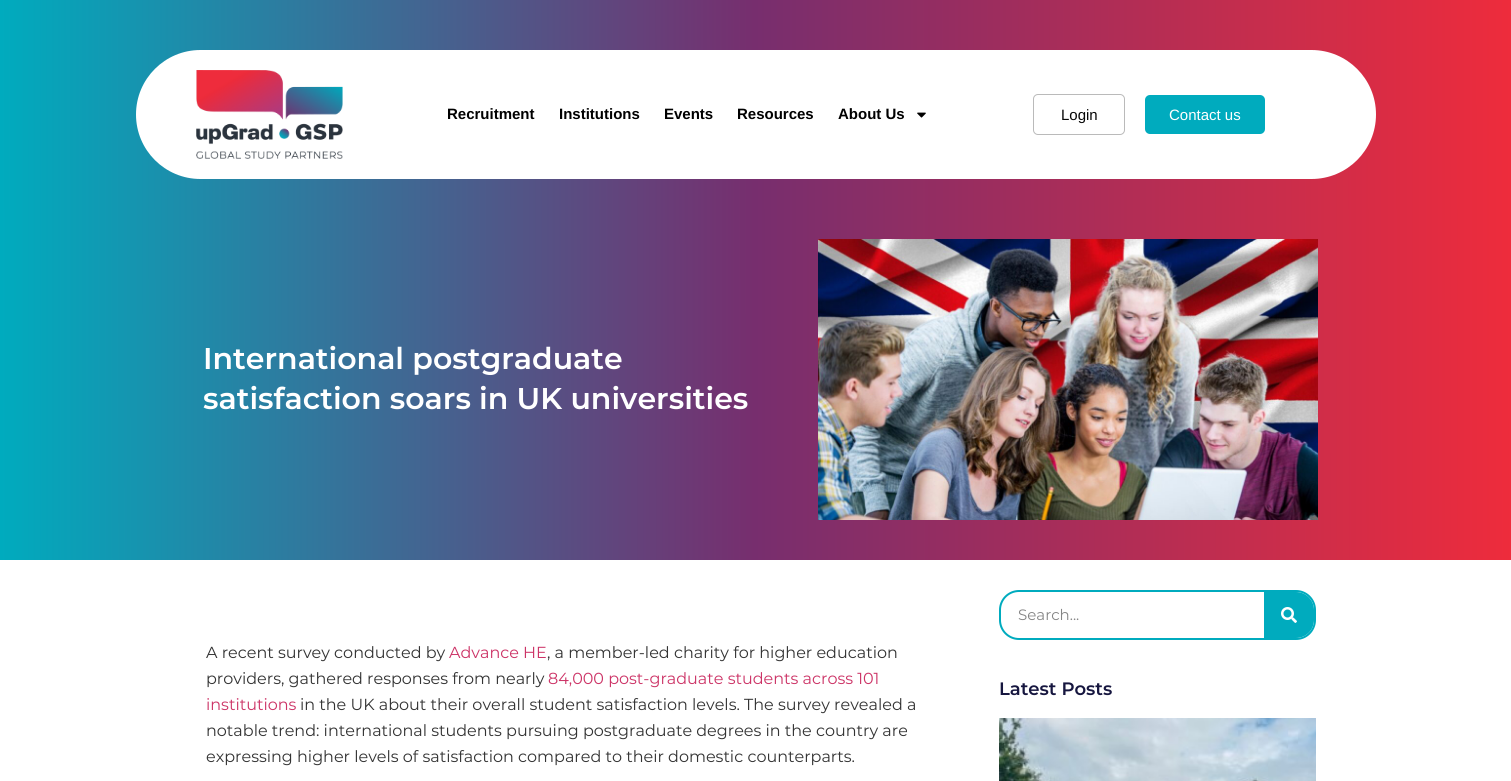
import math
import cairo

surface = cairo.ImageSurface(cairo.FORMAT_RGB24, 1511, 781)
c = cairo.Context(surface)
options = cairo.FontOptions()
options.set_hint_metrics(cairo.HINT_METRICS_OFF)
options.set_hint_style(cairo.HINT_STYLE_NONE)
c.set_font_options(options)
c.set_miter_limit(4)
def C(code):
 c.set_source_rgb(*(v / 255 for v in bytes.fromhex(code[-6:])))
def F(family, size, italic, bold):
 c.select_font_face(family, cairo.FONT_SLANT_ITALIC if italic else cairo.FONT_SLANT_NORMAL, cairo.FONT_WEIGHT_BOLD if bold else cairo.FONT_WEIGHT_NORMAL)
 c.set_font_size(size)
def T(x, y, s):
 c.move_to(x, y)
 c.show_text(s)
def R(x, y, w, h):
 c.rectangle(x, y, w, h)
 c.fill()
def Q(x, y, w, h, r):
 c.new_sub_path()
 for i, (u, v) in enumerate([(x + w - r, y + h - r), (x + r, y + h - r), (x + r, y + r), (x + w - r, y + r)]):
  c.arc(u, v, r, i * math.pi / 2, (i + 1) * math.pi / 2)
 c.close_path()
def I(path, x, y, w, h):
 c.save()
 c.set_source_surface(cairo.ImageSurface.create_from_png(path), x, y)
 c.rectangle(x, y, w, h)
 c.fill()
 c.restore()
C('ffffff')
c.paint()
gradient = cairo.LinearGradient(0,255,1511,254)
gradient.add_color_stop_rgba(0,0,0.671,0.745,1)
gradient.add_color_stop_rgba(.5,0.467,0.18,0.431,1)
gradient.add_color_stop_rgba(1,0.933,0.173,0.235,1)
c.set_source(gradient)
R(0,0,1511,560)
C('ffffff')
Q(136,50,1240,129,64.5)
c.fill()
I('1.png',196,70,147,89)
F('Liberation Sans',15,0,1)
C('000000')
T(447,119,'Recruitment')
T(559,119,'Institutions')
T(664,119,'Events')
T(737,119,'Resources')
T(838,119,'About Us')
I('2.png',917,112,9,6)
Q(1033.5,94.5,91,40,4.5)
C('bababa')
c.set_line_width(1)
c.stroke()
F('Liberation Sans',15,0,0)
C('060606')
T(1061,120,'Login')
C('00abbe')
Q(1145,95,120,39,5)
c.fill()
C('ffffff')
T(1169,120,'Contact us')
F('Montserrat SemiBold',30,0,0)
T(203,369,'International postgraduate')
T(203,409,'satisfaction soars in UK universities')
I('3.png',818,239,500,281)
F('Montserrat',16,0,0)
C('333333')
T(206,658,'A recent survey conducted by')
C('cc3366')
T(449,658,'Advance HE')
C('333333')
T(547,658,', a member-led charity for higher education')
T(206,684,'providers, gathered responses from nearly')
C('cc3366')
T(548,684,'84,000 post-graduate students across 101')
T(206,710,'institutions')
C('333333')
T(300,710,'in the UK about their overall student satisfaction levels. The survey revealed a')
T(206,736,'notable trend: international students pursuing postgraduate degrees in the country are')
T(206,762,'expressing higher levels of satisfaction compared to their domestic counterparts.')
Q(1000,591,315,48,19)
C('00abbe')
c.set_line_width(2)
c.stroke()
F('Montserrat',15,0,0)
C('858585')
T(1018,620,'Search...')
C('00abbe')
c.new_path()
c.move_to(1264,592)
c.line_to(1296,592)
c.curve_to(1306,592,1314,600,1314,610)
c.line_to(1314,620)
c.curve_to(1314,630,1306,638,1296,638)
c.line_to(1264,638)
c.close_path()
c.fill()
I('4.png',1281,607,16,16)
F('Montserrat SemiBold',18,0,0)
C('16163f')
T(999,695,'Latest Posts')
I('5.png',999,718,317,63)
surface.write_to_png('o.png')
